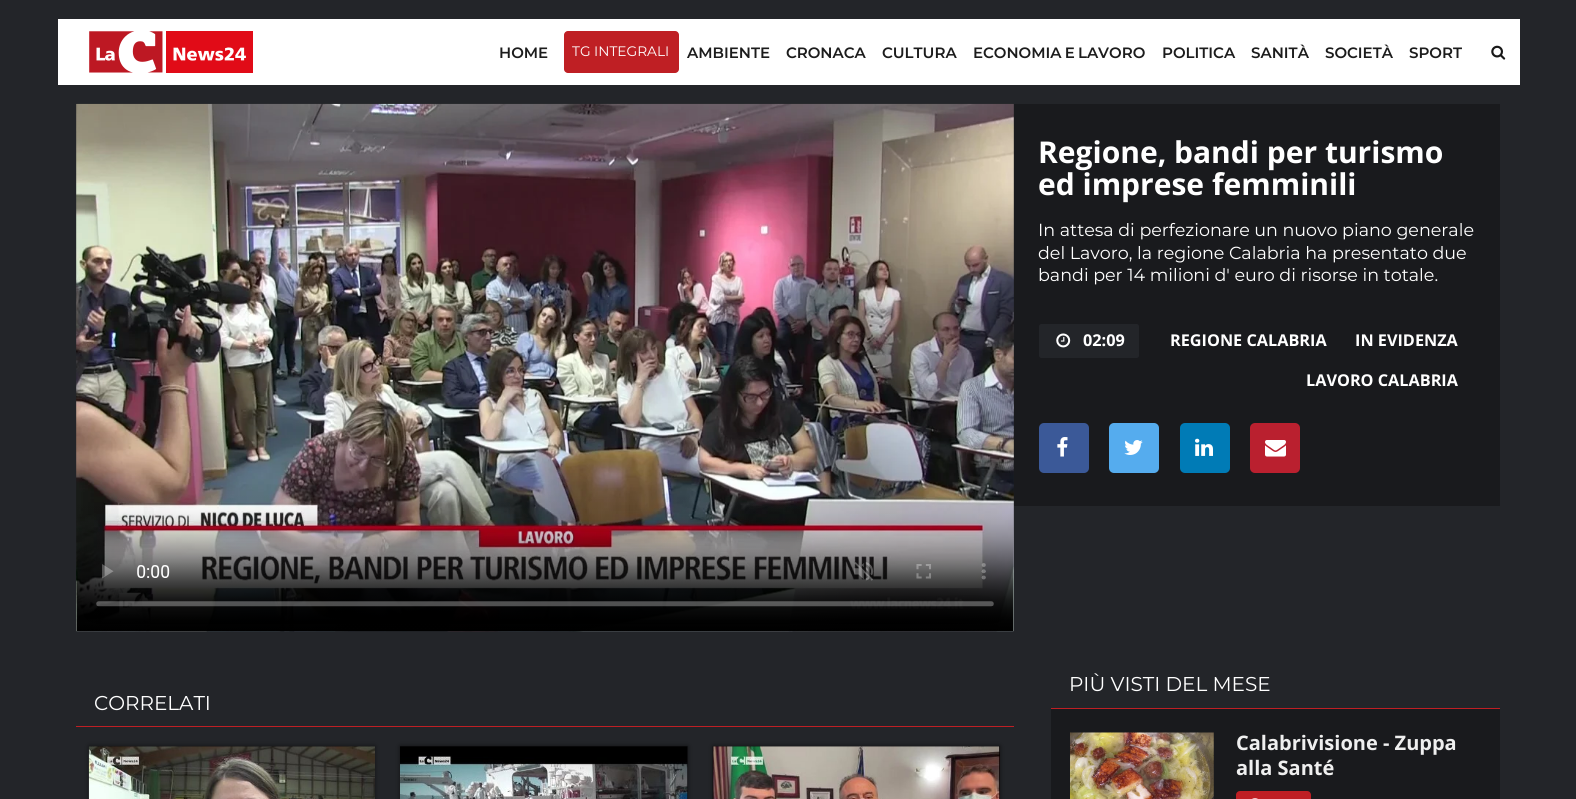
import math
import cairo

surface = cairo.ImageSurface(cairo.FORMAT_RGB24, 1576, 799)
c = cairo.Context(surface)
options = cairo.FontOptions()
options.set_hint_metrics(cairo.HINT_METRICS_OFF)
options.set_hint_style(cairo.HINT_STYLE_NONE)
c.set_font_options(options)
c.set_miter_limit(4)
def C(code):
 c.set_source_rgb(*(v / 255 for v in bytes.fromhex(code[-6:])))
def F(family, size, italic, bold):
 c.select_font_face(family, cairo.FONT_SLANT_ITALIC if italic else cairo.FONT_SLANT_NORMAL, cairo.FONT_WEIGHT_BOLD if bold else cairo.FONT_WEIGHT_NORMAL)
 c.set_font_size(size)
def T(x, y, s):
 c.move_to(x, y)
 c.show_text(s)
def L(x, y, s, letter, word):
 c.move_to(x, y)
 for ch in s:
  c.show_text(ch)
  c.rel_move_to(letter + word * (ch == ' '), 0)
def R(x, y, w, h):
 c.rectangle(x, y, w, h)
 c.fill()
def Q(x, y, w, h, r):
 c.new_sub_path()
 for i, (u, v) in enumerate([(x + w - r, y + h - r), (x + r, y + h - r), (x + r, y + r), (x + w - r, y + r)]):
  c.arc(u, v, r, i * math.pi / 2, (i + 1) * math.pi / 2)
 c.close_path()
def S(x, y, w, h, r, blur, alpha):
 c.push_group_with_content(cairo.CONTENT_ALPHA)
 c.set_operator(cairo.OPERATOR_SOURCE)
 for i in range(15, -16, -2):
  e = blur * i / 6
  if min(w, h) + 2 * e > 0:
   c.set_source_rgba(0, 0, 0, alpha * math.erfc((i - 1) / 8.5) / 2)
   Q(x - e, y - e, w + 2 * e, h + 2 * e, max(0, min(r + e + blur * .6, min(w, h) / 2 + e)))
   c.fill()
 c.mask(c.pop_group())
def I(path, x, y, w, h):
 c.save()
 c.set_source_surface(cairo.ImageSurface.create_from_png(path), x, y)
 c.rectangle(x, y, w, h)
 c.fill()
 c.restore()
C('232529')
c.paint()
C('ffffff')
R(58,19,1462,66)
I('1.png',89,31,164,42)
F('Montserrat SemiBold',15,0,0)
C('1c1c1c')
T(499,58,'HOME')
C('bf1f24')
Q(564,31,115,42,4)
c.fill()
F('Montserrat',13.75,0,0)
C('ffffff')
T(572,56,'TG INTEGRALI')
F('Montserrat SemiBold',15,0,0)
C('1c1c1c')
T(687,58,'AMBIENTE')
T(786,58,'CRONACA')
T(882,58,'CULTURA')
L(973,58,'ECONOMIA E LAVORO',0,-1)
T(1162,58,'POLITICA')
T(1251,58,'SANITÀ')
T(1325,58,'SOCIETÀ')
T(1409,58,'SPORT')
I('2.png',1491,45,15,15)
I('3.png',76,104,938,528)
I('4.png',76,103,938,529)
C('191a1d')
R(1014,104,486,402)
F('Open Sans',30,0,1)
C('ffffff')
T(1038,163,'Regione, bandi per turismo')
T(1038,195,'ed imprese femminili')
F('Montserrat',17.5,0,0)
T(1038,236,'In attesa di perfezionare un nuovo piano generale')
T(1038,259,'del Lavoro, la regione Calabria ha presentato due')
T(1038,281,'bandi per 14 milioni d\' euro di risorse in totale.')
C('232529')
Q(1039,324,100,34,2.5)
c.fill()
I('5.png',1056,333,15,15)
F('Open Sans',16.25,0,1)
C('ffffff')
T(1083,346,'02:09')
T(1170,346,'REGIONE CALABRIA')
T(1355,346,'IN EVIDENZA')
T(1306,386,'LAVORO CALABRIA')
C('3b5998')
Q(1039,423,50,50,5)
c.fill()
I('6.png',1057,437,11,20)
C('55acee')
Q(1109,423,50,50,5)
c.fill()
I('7.png',1124,440,19,15)
C('007bb6')
Q(1180,423,50,50,5)
c.fill()
I('8.png',1195,438,18,18)
C('ba202f')
Q(1250,423,50,50,5)
c.fill()
I('9.png',1265,440,21,17)
C('bf1f24')
R(76,726,938,1)
F('Montserrat',20,0,0)
C('ffffff')
T(94,710,'CORRELATI')
C('000000')
S(89,746,286,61,0,2.5,.5)
c.set_source_rgba(0,0,0,0.3)
R(89,746,286,1)
I('10.png',88,746,287,53)
C('000000')
S(400,746,288,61,0,2.5,.5)
c.set_source_rgba(0,0,0,0.3)
R(400,746,288,53)
I('11.png',400,746,288,53)
C('000000')
S(713,746,287,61,0,2.5,.5)
c.set_source_rgba(0,0,0,0.3)
R(713,746,287,1)
I('12.png',712,746,288,53)
C('bf1f24')
R(1051,708,449,1)
C('ffffff')
T(1069,691,'PIÙ VISTI DEL MESE')
C('191a1d')
R(1051,709,449,90)
I('13.png',1070,732,144,67)
F('Open Sans',20,0,1)
C('efefef')
T(1236,750,'Calabrivisione - Zuppa')
T(1236,775,'alla Santé')
C('bf1f24')
Q(1236,791,75,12,4)
c.fill()
I('14.png',1252,798,6,1)
surface.write_to_png('o.png')
